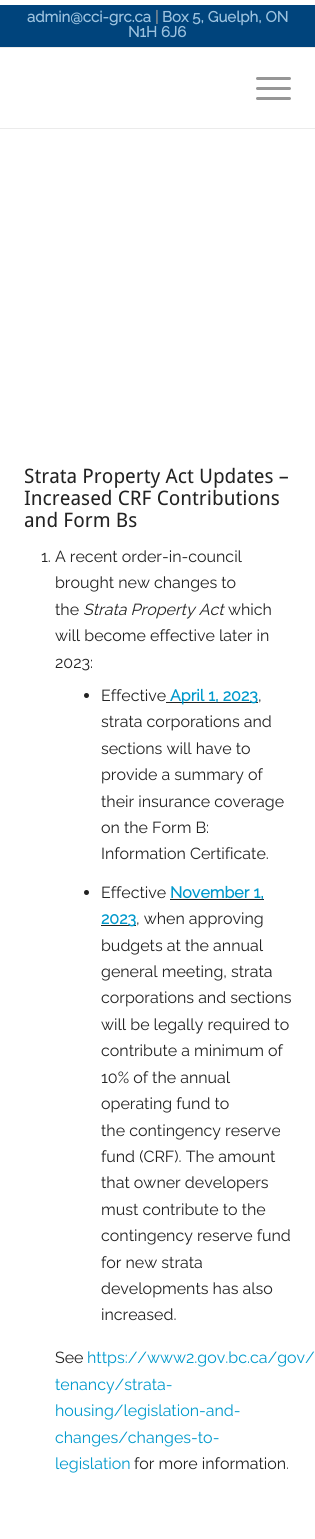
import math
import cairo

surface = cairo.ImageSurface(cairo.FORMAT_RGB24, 315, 1539)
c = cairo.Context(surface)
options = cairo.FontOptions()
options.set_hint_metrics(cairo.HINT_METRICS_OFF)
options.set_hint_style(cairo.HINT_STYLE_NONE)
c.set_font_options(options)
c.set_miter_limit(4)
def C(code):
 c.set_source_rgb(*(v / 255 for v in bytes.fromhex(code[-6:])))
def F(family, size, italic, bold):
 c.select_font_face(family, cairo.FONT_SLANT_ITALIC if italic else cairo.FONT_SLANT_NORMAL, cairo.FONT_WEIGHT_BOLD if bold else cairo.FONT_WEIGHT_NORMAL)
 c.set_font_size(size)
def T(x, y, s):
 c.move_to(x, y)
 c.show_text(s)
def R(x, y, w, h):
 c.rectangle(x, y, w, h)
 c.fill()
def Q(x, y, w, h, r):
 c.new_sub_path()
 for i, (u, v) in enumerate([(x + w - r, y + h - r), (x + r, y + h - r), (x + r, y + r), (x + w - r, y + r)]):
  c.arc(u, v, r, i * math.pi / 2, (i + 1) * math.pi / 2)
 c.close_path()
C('ffffff')
c.paint()
C('00447c')
R(0,5,315,42)
C('ebebeb')
R(0,47,315,1)
F('Raleway',15,0,1)
C('9cc2df')
T(27,22,'admin@cci-grc.ca')
C('969696')
T(155,22,'|')
C('9cc2df')
T(162,22,'Box 5, Guelph, ON')
T(128,37,'N1H 6J6')
C('ebebeb')
R(0,128,315,1)
C('969696')
Q(256,87,35,3,1.5)
c.fill()
Q(256,77,35,3,1.5)
c.fill()
Q(256,97,35,3,1.5)
c.fill()
F('Droid Sans',20,0,0)
C('222222')
T(24,483,'Strata Property Act Updates –')
T(24,505,'Increased CRF Contributions')
T(24,527,'and Form Bs')
F('Raleway Thin',16,0,0)
T(41,562,'1. A recent order-in-council')
T(55,588,'brought new changes to')
T(55,615,'the')
F('Raleway Thin',16,1,0)
T(83,615,'Strata Property Act')
F('Raleway Thin',16,0,0)
T(228,615,'which')
T(55,641,'will become effective later in')
T(55,668,'2023:')
c.new_path()
c.arc(86.5,695.5,2.5,0,2 * math.pi)
c.fill()
T(101,701,'Effective')
R(166,702,92,1)
F('Raleway',16,0,1)
C('0099cc')
T(170,701,'April 1, 2023')
F('Raleway Thin',16,0,0)
C('222222')
T(258,701,',')
T(101,727,'strata corporations and')
T(101,754,'sections will have to')
T(101,780,'provide a summary of')
T(101,807,'their insurance coverage')
T(101,833,'on the Form B:')
T(101,859,'Information Certificate.')
c.new_path()
c.arc(86.5,892.5,2.5,0,2 * math.pi)
c.fill()
T(101,898,'Effective')
R(170,899,94,1)
F('Raleway',16,0,1)
C('0099cc')
T(170,898,'November 1,')
C('222222')
R(101,925,35,1)
C('0099cc')
T(101,924,'2023')
F('Raleway Thin',16,0,0)
C('222222')
T(136,924,', when approving')
T(101,951,'budgets at the annual')
T(101,977,'general meeting, strata')
T(101,1003,'corporations and sections')
T(101,1030,'will be legally required to')
T(101,1056,'contribute a minimum of')
T(101,1083,'10% of the annual')
T(101,1109,'operating fund to')
T(101,1136,'the contingency reserve')
T(101,1162,'fund (CRF). The amount')
T(101,1188,'that owner developers')
T(101,1215,'must contribute to the')
T(101,1241,'contingency reserve fund')
T(101,1268,'for new strata')
T(101,1294,'developments has also')
T(101,1320,'increased.')
T(55,1363,'See')
C('0099cc')
T(87,1363,'https://www2.gov.bc.ca/gov/')
T(55,1390,'tenancy/strata-')
T(55,1416,'housing/legislation-and-')
T(55,1443,'changes/changes-to-')
T(55,1469,'legislation')
C('222222')
T(134,1469,'for more information.')
surface.write_to_png('o.png')
